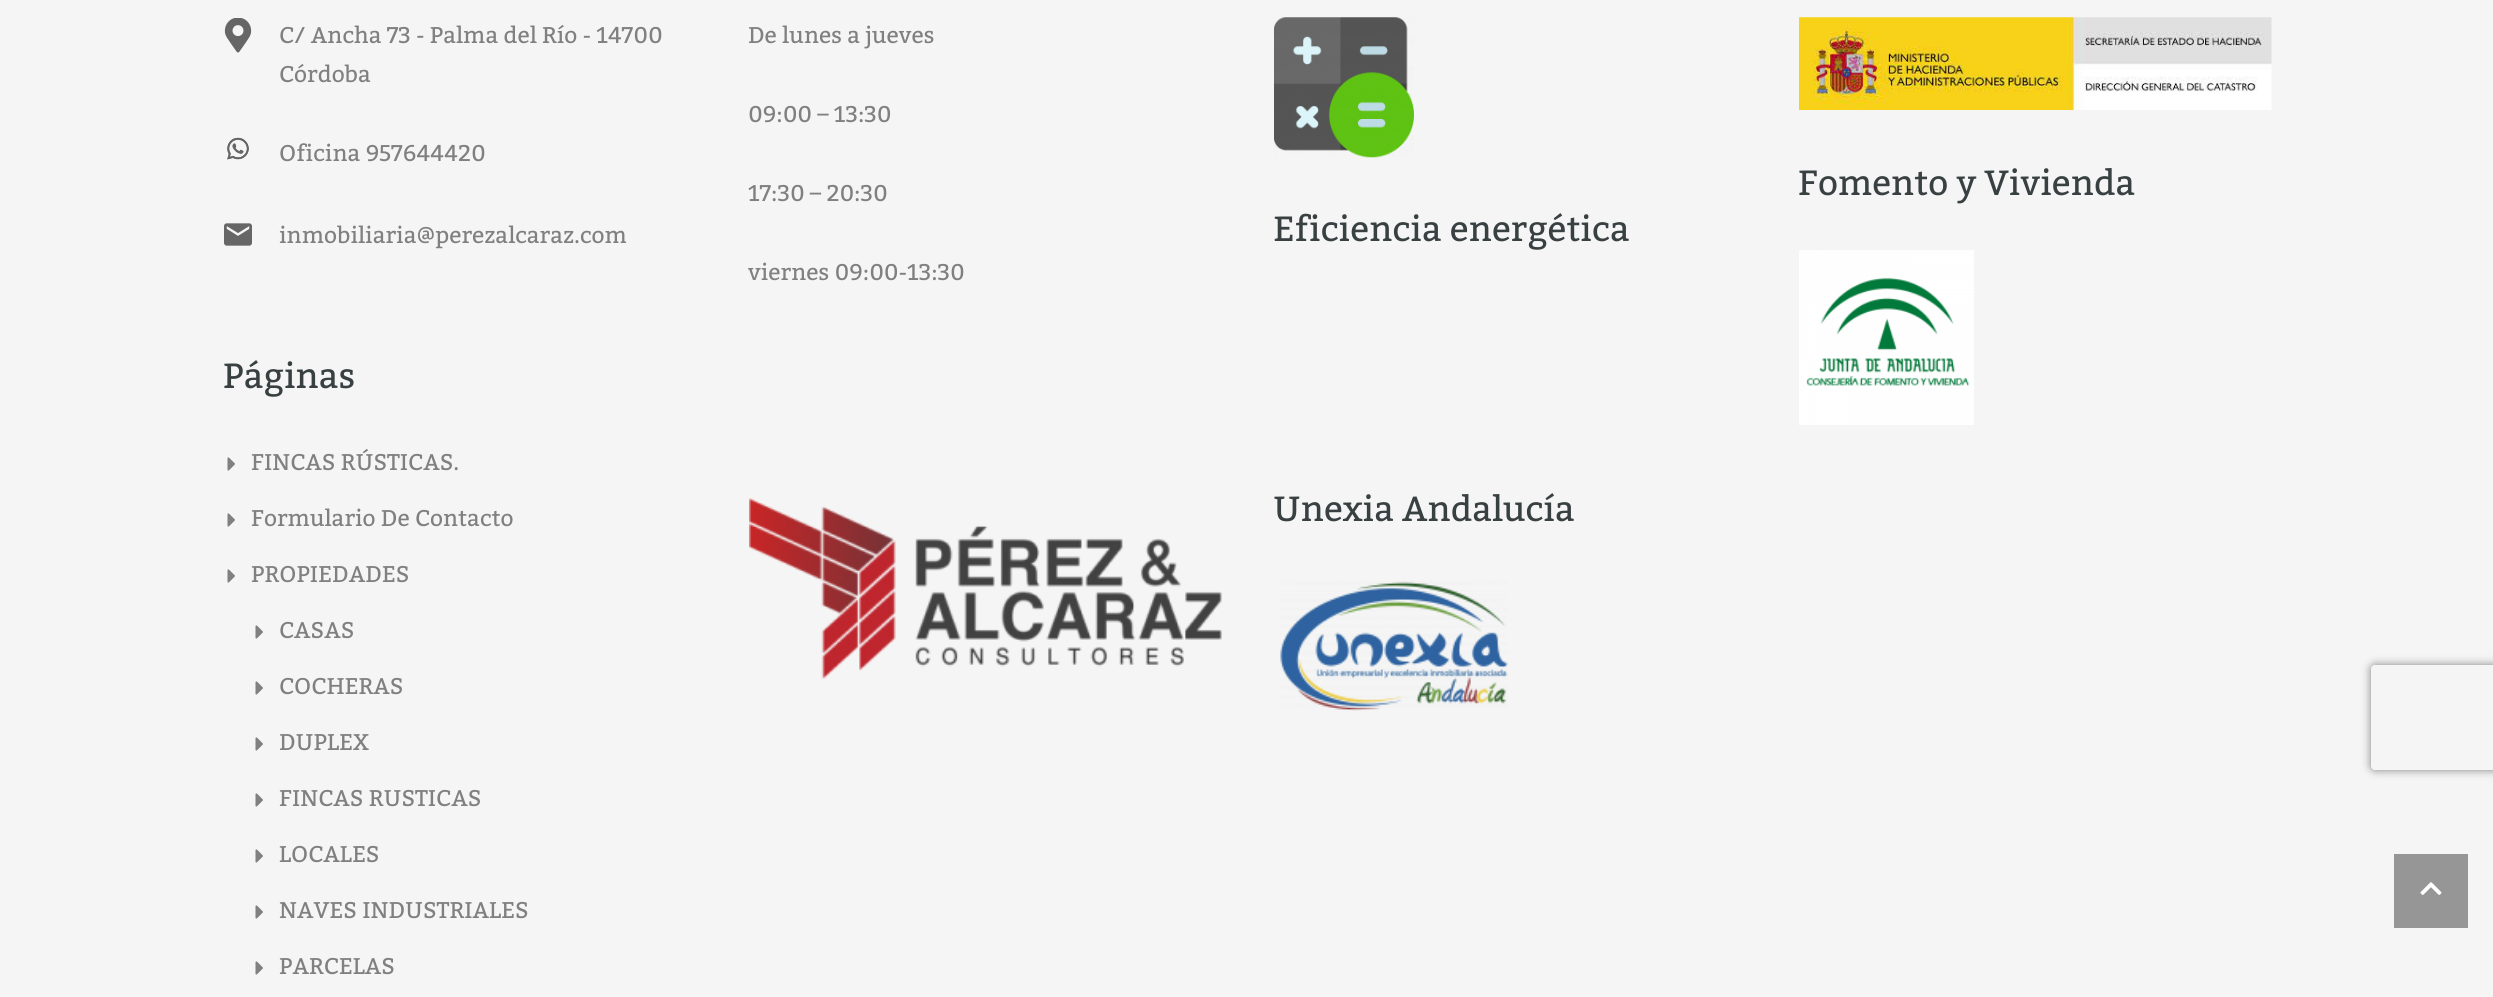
import math
import cairo

surface = cairo.ImageSurface(cairo.FORMAT_RGB24, 2493, 997)
c = cairo.Context(surface)
options = cairo.FontOptions()
options.set_hint_metrics(cairo.HINT_METRICS_OFF)
options.set_hint_style(cairo.HINT_STYLE_NONE)
c.set_font_options(options)
c.set_miter_limit(4)
def C(code):
 c.set_source_rgb(*(v / 255 for v in bytes.fromhex(code[-6:])))
def F(family, size, italic, bold):
 c.select_font_face(family, cairo.FONT_SLANT_ITALIC if italic else cairo.FONT_SLANT_NORMAL, cairo.FONT_WEIGHT_BOLD if bold else cairo.FONT_WEIGHT_NORMAL)
 c.set_font_size(size)
def T(x, y, s):
 c.move_to(x, y)
 c.show_text(s)
def R(x, y, w, h):
 c.rectangle(x, y, w, h)
 c.fill()
def Q(x, y, w, h, r):
 c.new_sub_path()
 for i, (u, v) in enumerate([(x + w - r, y + h - r), (x + r, y + h - r), (x + r, y + r), (x + w - r, y + r)]):
  c.arc(u, v, r, i * math.pi / 2, (i + 1) * math.pi / 2)
 c.close_path()
def S(x, y, w, h, r, blur, alpha):
 c.push_group_with_content(cairo.CONTENT_ALPHA)
 c.set_operator(cairo.OPERATOR_SOURCE)
 for i in range(15, -16, -2):
  e = blur * i / 6
  if min(w, h) + 2 * e > 0:
   c.set_source_rgba(0, 0, 0, alpha * math.erfc((i - 1) / 8.5) / 2)
   Q(x - e, y - e, w + 2 * e, h + 2 * e, max(0, min(r + e + blur * .6, min(w, h) / 2 + e)))
   c.fill()
 c.mask(c.pop_group())
def I(path, x, y, w, h):
 c.save()
 c.set_source_surface(cairo.ImageSurface.create_from_png(path), x, y)
 c.rectangle(x, y, w, h)
 c.fill()
 c.restore()
C('f5f5f5')
c.paint()
I('1.png',224,18,28,35)
F('Kadwa',22.75,0,0)
C('808080')
T(279,43,'C/ Ancha 73 - Palma del Río - 14700')
T(279,82,'Córdoba')
I('2.png',227,137,22,23)
I('3.png',227,138,22,22)
T(279,161,'Oficina 957644420')
I('4.png',224,223,28,23)
T(279,243,'inmobiliaria@perezalcaraz.com')
F('Kadwa',35,0,0)
C('394041')
T(223,388,'Páginas')
I('5.png',227,457,8,14)
F('Kadwa',22.75,0,0)
C('808080')
T(251,470,'FINCAS RÚSTICAS.')
I('5.png',227,513,8,14)
T(251,526,'Formulario De Contacto')
I('5.png',227,569,8,14)
T(251,582,'PROPIEDADES')
I('5.png',255,625,8,14)
T(279,638,'CASAS')
I('5.png',255,681,8,14)
T(279,694,'COCHERAS')
I('5.png',255,737,8,14)
T(279,750,'DUPLEX')
I('5.png',255,793,8,14)
T(279,806,'FINCAS RUSTICAS')
I('5.png',255,849,8,14)
T(279,862,'LOCALES')
I('5.png',255,905,8,14)
T(279,918,'NAVES INDUSTRIALES')
I('5.png',255,961,8,14)
T(279,974,'PARCELAS')
T(748,43,'De lunes a jueves')
T(748,122,'09:00 – 13:30')
T(748,201,'17:30 – 20:30')
T(748,280,'viernes 09:00-13:30')
I('6.png',749,498,473,181)
I('7.png',1799,17,473,93)
F('Kadwa',35,0,0)
C('394041')
T(1798,195,'Fomento y Vivienda')
I('8.png',1799,250,175,175)
I('9.png',1274,17,140,141)
T(1273,241,'Eficiencia energética')
T(1273,521,'Unexia Andalucía')
I('10.png',1280,581,228,130)
c.save()
c.set_fill_rule(cairo.FILL_RULE_EVEN_ODD)
c.new_path()
c.move_to(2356,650)
c.line_to(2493,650)
c.line_to(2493,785)
c.line_to(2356,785)
c.close_path()
c.move_to(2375,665)
c.line_to(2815,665)
c.curve_to(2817,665,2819,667,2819,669)
c.line_to(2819,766)
c.curve_to(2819,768,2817,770,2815,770)
c.line_to(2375,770)
c.curve_to(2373,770,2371,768,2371,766)
c.line_to(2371,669)
c.curve_to(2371,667,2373,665,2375,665)
c.close_path()
c.clip()
C('808080')
S(2371,665,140,105,4,4.5,1)
c.restore()
C('969696')
R(2394,854,74,74)
I('11.png',2420,882,22,13)
surface.write_to_png('o.png')
